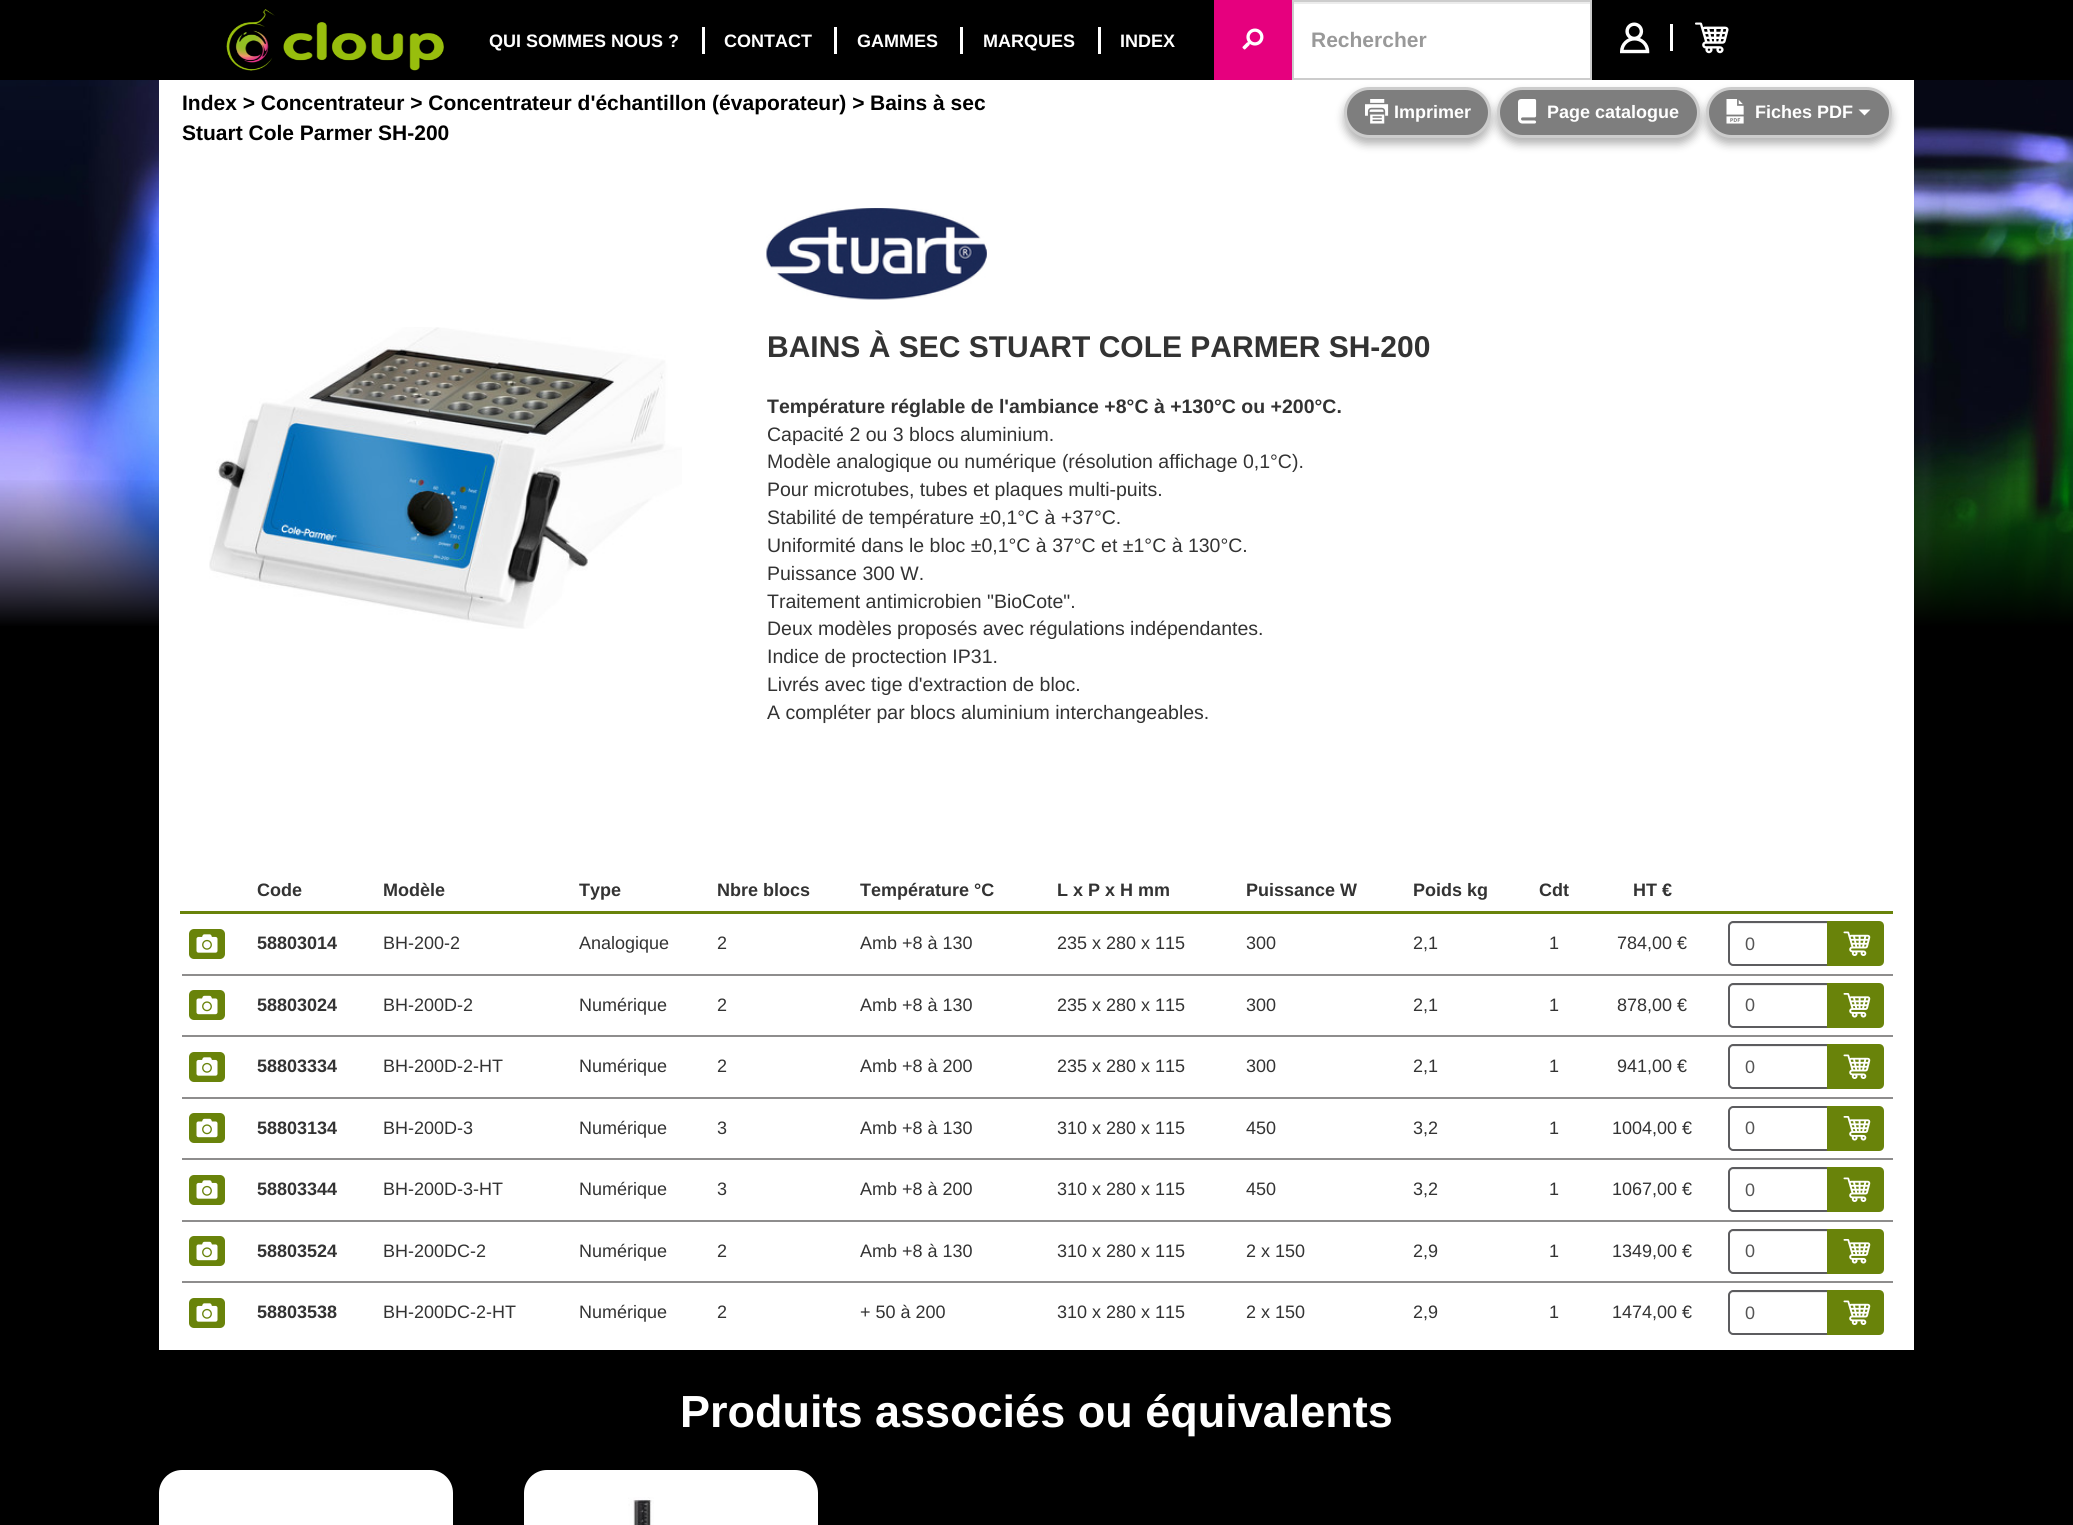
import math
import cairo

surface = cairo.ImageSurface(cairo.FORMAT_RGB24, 2073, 1525)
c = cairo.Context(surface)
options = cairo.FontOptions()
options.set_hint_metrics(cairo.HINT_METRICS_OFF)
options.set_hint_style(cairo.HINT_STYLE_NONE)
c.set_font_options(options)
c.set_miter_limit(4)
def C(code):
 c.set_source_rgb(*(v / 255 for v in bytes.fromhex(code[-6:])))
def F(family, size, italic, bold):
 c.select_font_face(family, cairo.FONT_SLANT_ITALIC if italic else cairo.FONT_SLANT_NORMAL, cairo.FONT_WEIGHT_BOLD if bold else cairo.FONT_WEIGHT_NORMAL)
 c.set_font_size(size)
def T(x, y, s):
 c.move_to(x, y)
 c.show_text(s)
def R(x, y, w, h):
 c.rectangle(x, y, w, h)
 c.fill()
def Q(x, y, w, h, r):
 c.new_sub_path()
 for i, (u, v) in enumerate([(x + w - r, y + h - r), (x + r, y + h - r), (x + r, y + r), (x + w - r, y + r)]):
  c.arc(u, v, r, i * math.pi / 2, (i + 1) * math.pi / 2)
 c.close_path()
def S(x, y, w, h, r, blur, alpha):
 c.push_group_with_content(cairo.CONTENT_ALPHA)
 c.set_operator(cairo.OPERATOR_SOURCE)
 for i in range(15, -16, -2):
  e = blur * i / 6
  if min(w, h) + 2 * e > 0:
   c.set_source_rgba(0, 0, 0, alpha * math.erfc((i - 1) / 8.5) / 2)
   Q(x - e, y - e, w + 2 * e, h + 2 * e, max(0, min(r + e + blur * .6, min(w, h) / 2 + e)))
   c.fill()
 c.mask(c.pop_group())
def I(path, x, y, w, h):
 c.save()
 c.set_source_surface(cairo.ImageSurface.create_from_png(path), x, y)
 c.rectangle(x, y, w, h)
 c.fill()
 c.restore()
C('000000')
c.paint()
I('1.png',226,9,218,62)
F('Liberation Sans',18,0,1)
C('ffffff')
T(489,47,'QUI SOMMES NOUS ?')
R(702,27,3,27)
T(724,47,'CONTACT')
R(834,27,3,27)
T(857,47,'GAMMES')
R(960,27,3,27)
T(983,47,'MARQUES')
R(1098,27,3,27)
T(1120,47,'INDEX')
C('e6007e')
R(1214,0,78,80)
I('2.png',1242,28,22,22)
C('ffffff')
R(1294,4,296,74)
C('ececec')
R(1293,2,297,2)
I('5.png',0,80,2073,546)
gradient = cairo.LinearGradient(1037,477,1037,627)
gradient.add_color_stop_rgba(0,0,0,0,0)
gradient.add_color_stop_rgba(1,0,0,0,1)
c.set_source(gradient)
R(0,480,2073,146)
C('ffffff')
R(159,80,1755,1270)
C('000000')
S(1344,93,147,51,25.5,4.5,.3)
C('7e7e7e')
Q(1345.5,88.5,144,48,24)
c.fill_preserve()
C('cccccc')
c.set_line_width(3)
c.stroke()
C('000000')
S(1497,93,203,51,25.5,4.5,.3)
c.rectangle(1293,1,298,78)
C('cccccc')
c.set_line_width(2)
c.stroke()
F('Liberation Sans',21,0,1)
C('999999')
T(1311,47,'Rechercher')
I('3.png',1620,22,30,32)
C('ffffff')
R(1670,24,3,27)
I('4.png',1695,22,34,32)
C('000000')
T(182,110,'Index > Concentrateur > Concentrateur d\'échantillon (évaporateur) >')
T(870,110,'Bains à sec')
T(182,140,'Stuart Cole Parmer SH-200')
I('6.png',1365,99,24,25)
F('Liberation Sans',18,0,1)
C('ffffff')
T(1394,118,'Imprimer')
C('7e7e7e')
Q(1498.5,88.5,200,48,24)
c.fill_preserve()
C('cccccc')
c.set_line_width(3)
c.stroke()
I('7.png',1518,99,19,25)
C('ffffff')
T(1547,118,'Page catalogue')
C('000000')
S(1706,93,186,51,25.5,4.5,.3)
C('7e7e7e')
Q(1707.5,88.5,183,48,24)
c.fill_preserve()
C('cccccc')
c.stroke()
I('8.png',1726,99,18,25)
C('ffffff')
T(1755,118,'Fiches PDF')
c.new_path()
c.move_to(1858.5,109.5)
c.line_to(1870.5,109.5)
c.line_to(1864.5,115.5)
c.close_path()
c.fill()
I('9.png',209,327,473,302)
I('10.png',766,208,221,92)
F('Liberation Sans',30,0,1)
C('333333')
T(767,357,'BAINS À SEC STUART COLE PARMER SH-200')
F('Liberation Sans',19.5,0,1)
T(767,413,'Température réglable de l\'ambiance +8°C à +130°C ou +200°C.')
F('Liberation Sans',19.5,0,0)
T(767,441,'Capacité 2 ou 3 blocs aluminium.')
T(767,468,'Modèle analogique ou numérique (résolution affichage 0,1°C).')
T(767,496,'Pour microtubes, tubes et plaques multi-puits.')
T(767,524,'Stabilité de température ±0,1°C à +37°C.')
T(767,552,'Uniformité dans le bloc ±0,1°C à 37°C et ±1°C à 130°C.')
T(767,580,'Puissance 300 W.')
T(767,608,'Traitement antimicrobien "BioCote".')
T(767,635,'Deux modèles proposés avec régulations indépendantes.')
T(767,663,'Indice de proctection IP31.')
T(767,691,'Livrés avec tige d\'extraction de bloc.')
T(767,719,'A compléter par blocs aluminium interchangeables.')
C('69830a')
R(180,911,1713,3)
F('Liberation Sans',18,0,1)
C('333333')
T(257,896,'Code')
T(383,896,'Modèle')
T(579,896,'Type')
T(717,896,'Nbre blocs')
T(860,896,'Température °C')
T(1057,896,'L x P x H mm')
T(1246,896,'Puissance W')
T(1413,896,'Poids kg')
T(1539,896,'Cdt')
T(1633,896,'HT €')
C('69830a')
Q(189,929,36,30,5)
c.fill()
I('11.png',196,934,22,19)
C('333333')
T(257,949,'58803014')
F('Liberation Sans',18,0,0)
T(383,949,'BH-200-2')
T(579,949,'Analogique')
T(717,949,'2')
T(860,949,'Amb +8 à 130')
T(1057,949,'235 x 280 x 115')
T(1246,949,'300')
T(1413,949,'2,1')
T(1549,949,'1')
T(1617,949,'784,00 €')
C('ececec')
c.new_path()
c.move_to(1732,924)
c.line_to(1827,924)
c.line_to(1827,923)
c.line_to(1733,923)
c.curve_to(1731,923,1730,924,1730,926)
c.line_to(1730,927)
c.curve_to(1730,925,1731,924,1732,924)
c.close_path()
c.fill()
c.new_path()
c.move_to(1733,922)
c.line_to(1828,922)
c.line_to(1828,965)
c.line_to(1733,965)
c.curve_to(1731,965,1729,963,1729,961)
c.line_to(1729,926)
c.curve_to(1729,924,1731,922,1733,922)
c.close_path()
C('5c5c5f')
c.set_line_width(2)
c.stroke()
C('555555')
T(1745,950,'0')
C('69830a')
c.new_path()
c.move_to(1827,921)
c.line_to(1879,921)
c.curve_to(1882,921,1884,923,1884,926)
c.line_to(1884,961)
c.curve_to(1884,964,1882,966,1879,966)
c.line_to(1827,966)
c.close_path()
c.fill()
I('12.png',1843,931,28,25)
Q(189,990,36,30,5)
c.fill()
I('13.png',196,995,22,20)
F('Liberation Sans',18,0,1)
C('333333')
T(257,1011,'58803024')
F('Liberation Sans',18,0,0)
T(383,1011,'BH-200D-2')
T(579,1011,'Numérique')
T(717,1011,'2')
T(860,1011,'Amb +8 à 130')
T(1057,1011,'235 x 280 x 115')
T(1246,1011,'300')
T(1413,1011,'2,1')
T(1549,1011,'1')
T(1617,1011,'878,00 €')
C('8e8d8d')
R(182,974,1711,2)
C('ececec')
c.new_path()
c.move_to(1732,986)
c.line_to(1827,986)
c.line_to(1827,984)
c.line_to(1733,984)
c.curve_to(1731,984,1730,985,1730,987)
c.line_to(1730,988)
c.curve_to(1730,987,1731,986,1732,986)
c.close_path()
c.fill()
c.new_path()
c.move_to(1733,984)
c.line_to(1828,984)
c.line_to(1828,1027)
c.line_to(1733,1027)
c.curve_to(1731,1027,1729,1025,1729,1023)
c.line_to(1729,988)
c.curve_to(1729,986,1731,984,1733,984)
c.close_path()
C('5c5c5f')
c.stroke()
C('555555')
T(1745,1011,'0')
C('69830a')
c.new_path()
c.move_to(1827,983)
c.line_to(1879,983)
c.curve_to(1882,983,1884,985,1884,988)
c.line_to(1884,1023)
c.curve_to(1884,1026,1882,1028,1879,1028)
c.line_to(1827,1028)
c.close_path()
c.fill()
I('14.png',1843,993,28,25)
Q(189,1052,36,30,5)
c.fill()
I('11.png',196,1057,22,19)
F('Liberation Sans',18,0,1)
C('333333')
T(257,1072,'58803334')
F('Liberation Sans',18,0,0)
T(383,1072,'BH-200D-2-HT')
T(579,1072,'Numérique')
T(717,1072,'2')
T(860,1072,'Amb +8 à 200')
T(1057,1072,'235 x 280 x 115')
T(1246,1072,'300')
T(1413,1072,'2,1')
T(1549,1072,'1')
T(1617,1072,'941,00 €')
C('8e8d8d')
R(182,1035,1711,2)
C('ececec')
c.new_path()
c.move_to(1732,1047)
c.line_to(1827,1047)
c.line_to(1827,1046)
c.line_to(1733,1046)
c.curve_to(1731,1046,1730,1047,1730,1049)
c.line_to(1730,1050)
c.curve_to(1730,1048,1731,1047,1732,1047)
c.close_path()
c.fill()
c.new_path()
c.move_to(1733,1045)
c.line_to(1828,1045)
c.line_to(1828,1088)
c.line_to(1733,1088)
c.curve_to(1731,1088,1729,1086,1729,1084)
c.line_to(1729,1049)
c.curve_to(1729,1047,1731,1045,1733,1045)
c.close_path()
C('5c5c5f')
c.stroke()
C('555555')
T(1745,1073,'0')
C('69830a')
c.new_path()
c.move_to(1827,1044)
c.line_to(1879,1044)
c.curve_to(1882,1044,1884,1046,1884,1049)
c.line_to(1884,1084)
c.curve_to(1884,1087,1882,1089,1879,1089)
c.line_to(1827,1089)
c.close_path()
c.fill()
I('12.png',1843,1054,28,25)
Q(189,1113,36,30,5)
c.fill()
I('13.png',196,1118,22,20)
F('Liberation Sans',18,0,1)
C('333333')
T(257,1134,'58803134')
F('Liberation Sans',18,0,0)
T(383,1134,'BH-200D-3')
T(579,1134,'Numérique')
T(717,1134,'3')
T(860,1134,'Amb +8 à 130')
T(1057,1134,'310 x 280 x 115')
T(1246,1134,'450')
T(1413,1134,'3,2')
T(1549,1134,'1')
T(1612,1134,'1004,00 €')
C('8e8d8d')
R(182,1097,1711,2)
c.new_path()
c.move_to(1733,1107)
c.line_to(1828,1107)
c.line_to(1828,1150)
c.line_to(1733,1150)
c.curve_to(1731,1150,1729,1148,1729,1146)
c.line_to(1729,1111)
c.curve_to(1729,1109,1731,1107,1733,1107)
c.close_path()
C('5c5c5f')
c.stroke()
C('555555')
T(1745,1134,'0')
C('69830a')
c.new_path()
c.move_to(1827,1106)
c.line_to(1879,1106)
c.curve_to(1882,1106,1884,1108,1884,1111)
c.line_to(1884,1146)
c.curve_to(1884,1149,1882,1151,1879,1151)
c.line_to(1827,1151)
c.close_path()
c.fill()
I('14.png',1843,1116,28,25)
Q(189,1175,36,30,5)
c.fill()
I('11.png',196,1180,22,19)
F('Liberation Sans',18,0,1)
C('333333')
T(257,1195,'58803344')
F('Liberation Sans',18,0,0)
T(383,1195,'BH-200D-3-HT')
T(579,1195,'Numérique')
T(717,1195,'3')
T(860,1195,'Amb +8 à 200')
T(1057,1195,'310 x 280 x 115')
T(1246,1195,'450')
T(1413,1195,'3,2')
T(1549,1195,'1')
T(1612,1195,'1067,00 €')
C('8e8d8d')
R(182,1158,1711,2)
C('ececec')
c.new_path()
c.move_to(1732,1170)
c.line_to(1827,1170)
c.line_to(1827,1169)
c.line_to(1733,1169)
c.curve_to(1731,1169,1730,1170,1730,1172)
c.line_to(1730,1173)
c.curve_to(1730,1171,1731,1170,1732,1170)
c.close_path()
c.fill()
c.new_path()
c.move_to(1733,1168)
c.line_to(1828,1168)
c.line_to(1828,1211)
c.line_to(1733,1211)
c.curve_to(1731,1211,1729,1209,1729,1207)
c.line_to(1729,1172)
c.curve_to(1729,1170,1731,1168,1733,1168)
c.close_path()
C('5c5c5f')
c.stroke()
C('555555')
T(1745,1196,'0')
C('69830a')
c.new_path()
c.move_to(1827,1167)
c.line_to(1879,1167)
c.curve_to(1882,1167,1884,1169,1884,1172)
c.line_to(1884,1207)
c.curve_to(1884,1210,1882,1212,1879,1212)
c.line_to(1827,1212)
c.close_path()
c.fill()
I('12.png',1843,1177,28,25)
Q(189,1236,36,30,5)
c.fill()
I('13.png',196,1241,22,20)
F('Liberation Sans',18,0,1)
C('333333')
T(257,1257,'58803524')
F('Liberation Sans',18,0,0)
T(383,1257,'BH-200DC-2')
T(579,1257,'Numérique')
T(717,1257,'2')
T(860,1257,'Amb +8 à 130')
T(1057,1257,'310 x 280 x 115')
T(1246,1257,'2 x 150')
T(1413,1257,'2,9')
T(1549,1257,'1')
T(1612,1257,'1349,00 €')
C('8e8d8d')
R(182,1220,1711,2)
C('ececec')
c.new_path()
c.move_to(1732,1232)
c.line_to(1827,1232)
c.line_to(1827,1230)
c.line_to(1733,1230)
c.curve_to(1731,1230,1730,1231,1730,1233)
c.line_to(1730,1234)
c.curve_to(1730,1233,1731,1232,1732,1232)
c.close_path()
c.fill()
c.new_path()
c.move_to(1733,1230)
c.line_to(1828,1230)
c.line_to(1828,1273)
c.line_to(1733,1273)
c.curve_to(1731,1273,1729,1271,1729,1269)
c.line_to(1729,1234)
c.curve_to(1729,1232,1731,1230,1733,1230)
c.close_path()
C('5c5c5f')
c.stroke()
C('555555')
T(1745,1257,'0')
C('69830a')
c.new_path()
c.move_to(1827,1229)
c.line_to(1879,1229)
c.curve_to(1882,1229,1884,1231,1884,1234)
c.line_to(1884,1269)
c.curve_to(1884,1272,1882,1274,1879,1274)
c.line_to(1827,1274)
c.close_path()
c.fill()
I('14.png',1843,1239,28,25)
Q(189,1298,36,30,5)
c.fill()
I('11.png',196,1303,22,19)
F('Liberation Sans',18,0,1)
C('333333')
T(257,1318,'58803538')
F('Liberation Sans',18,0,0)
T(383,1318,'BH-200DC-2-HT')
T(579,1318,'Numérique')
T(717,1318,'2')
T(860,1318,'+ 50 à 200')
T(1057,1318,'310 x 280 x 115')
T(1246,1318,'2 x 150')
T(1413,1318,'2,9')
T(1549,1318,'1')
T(1612,1318,'1474,00 €')
C('8e8d8d')
R(182,1281,1711,2)
C('ececec')
c.new_path()
c.move_to(1732,1293)
c.line_to(1827,1293)
c.line_to(1827,1292)
c.line_to(1733,1292)
c.curve_to(1731,1292,1730,1293,1730,1295)
c.line_to(1730,1296)
c.curve_to(1730,1294,1731,1293,1732,1293)
c.close_path()
c.fill()
c.new_path()
c.move_to(1733,1291)
c.line_to(1828,1291)
c.line_to(1828,1334)
c.line_to(1733,1334)
c.curve_to(1731,1334,1729,1332,1729,1330)
c.line_to(1729,1295)
c.curve_to(1729,1293,1731,1291,1733,1291)
c.close_path()
C('5c5c5f')
c.stroke()
C('555555')
T(1745,1319,'0')
C('69830a')
c.new_path()
c.move_to(1827,1290)
c.line_to(1879,1290)
c.curve_to(1882,1290,1884,1292,1884,1295)
c.line_to(1884,1330)
c.curve_to(1884,1333,1882,1335,1879,1335)
c.line_to(1827,1335)
c.close_path()
c.fill()
I('12.png',1843,1300,28,25)
F('Liberation Sans',45,0,1)
C('ffffff')
T(680,1427,'Produits associés ou équivalents')
Q(159,1470,294,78,23)
c.fill()
Q(524,1470,294,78,23)
c.fill()
I('15.png',628,1497,26,28)
surface.write_to_png('o.png')
